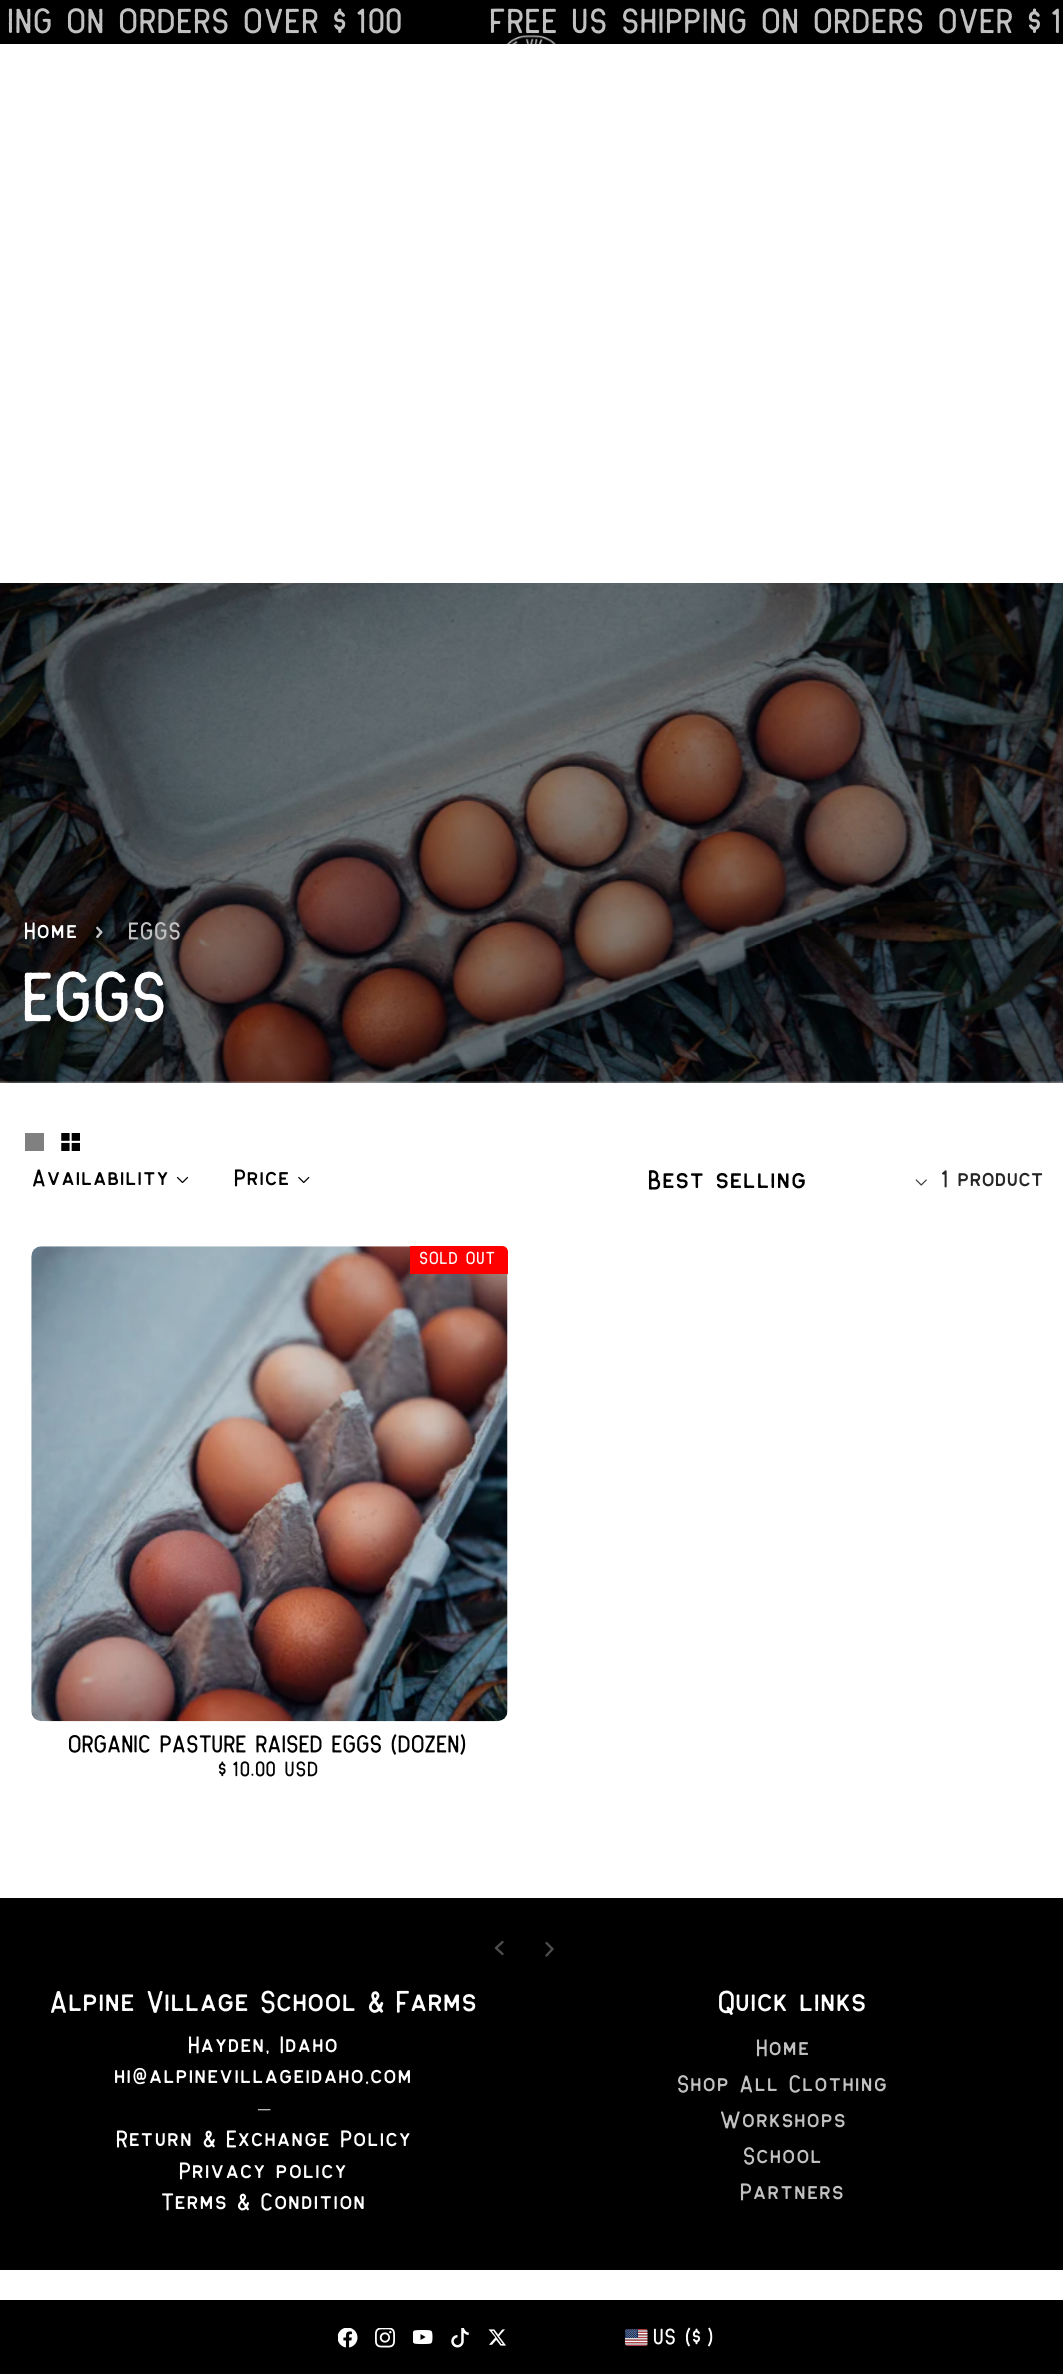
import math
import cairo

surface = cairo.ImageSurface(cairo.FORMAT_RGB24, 1063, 2374)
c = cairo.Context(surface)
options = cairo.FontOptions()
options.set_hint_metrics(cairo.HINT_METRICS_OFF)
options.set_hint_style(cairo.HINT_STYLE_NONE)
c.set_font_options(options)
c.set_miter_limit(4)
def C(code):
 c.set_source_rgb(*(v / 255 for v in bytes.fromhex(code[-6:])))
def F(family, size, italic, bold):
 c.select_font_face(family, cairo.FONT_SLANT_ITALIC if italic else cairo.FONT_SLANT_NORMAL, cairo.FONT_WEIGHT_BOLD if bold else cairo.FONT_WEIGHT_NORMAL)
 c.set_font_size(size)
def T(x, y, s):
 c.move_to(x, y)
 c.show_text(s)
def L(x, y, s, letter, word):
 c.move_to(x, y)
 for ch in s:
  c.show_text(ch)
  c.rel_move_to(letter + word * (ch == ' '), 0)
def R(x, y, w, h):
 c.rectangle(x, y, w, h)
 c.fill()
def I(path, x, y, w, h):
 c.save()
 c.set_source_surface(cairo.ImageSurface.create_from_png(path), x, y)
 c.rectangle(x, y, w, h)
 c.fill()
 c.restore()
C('ffffff')
c.paint()
C('000000')
R(0,0,1063,44)
F('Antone',25,0,0)
C('c1c1c2')
L(9,31,'ING ON ORDERS OVER $100',.75,0)
L(491,31,'FREE US SHIPPING ON ORDERS OVER $1',.75,0)
I('1.png',506,35,50,9)
I('2.png',0,583,1063,500)
F('Antone',17.5,0,0)
C('ffffff')
L(25,938,'Home',.75,0)
F('Antone',20,0,0)
C('c1c1c2')
L(96,938,'›',.75,0)
F('Antone',17.5,0,0)
L(129,938,'EGGS',.75,0)
F('Antone',50,0,0)
C('ffffff')
T(25,1017,'EGGS')
C('808080')
R(25,1133,19,18)
I('3.png',61,1133,19,18)
F('Antone',17.5,0,0)
C('000000')
L(33,1185,'Availability',.5,0)
I('4.png',176,1176,13,8)
L(235,1185,'Price',.5,0)
I('5.png',298,1176,12,8)
F('Antone',20,0,0)
L(649,1188,'Best selling',.5,0)
I('6.png',915,1179,12,7)
F('Antone',17.5,0,0)
C('262626')
L(942,1186,'1 product',-.1,0)
I('7.png',31,1246,477,476)
C('ff0000')
c.new_path()
c.move_to(410,1246)
c.line_to(502,1246)
c.curve_to(505.5,1246,508,1248.5,508,1252)
c.line_to(508,1274)
c.line_to(410,1274)
c.close_path()
c.fill()
F('Antone',12.5,0,0)
C('ffffff')
L(420,1263,'SOLD OUT',.75,0)
F('Antone',17.5,0,0)
C('000000')
L(69,1751,'ORGANIC PASTURE RAISED EGGS (DOZEN)',-.1,0)
F('Antone',15,0,0)
L(219,1775,'$10.00 USD',.75,0)
R(0,1898,1063,372)
c.new_path()
c.move_to(546.5,1955.5)
c.line_to(552.5,1949)
c.line_to(546.5,1943)
c.move_to(502.5,1942)
c.line_to(496,1948)
c.line_to(502.5,1954)
C('4d4d4d')
c.set_line_width(2.3)
c.set_line_cap(cairo.LINE_CAP_ROUND)
c.stroke()
F('Antone',22.5,0,0)
C('ffffff')
L(51,2011,'Alpine Village School & Farms',-.1,0)
F('Antone',17.5,0,0)
L(189,2052,'Hayden, Idaho',.75,0)
L(115,2083,'hi@alpinevillageidaho.com',.75,0)
F('Liberation Sans',17.5,0,0)
C('c1c1c2')
L(258,2115,'─',.75,0)
F('Antone',17.5,0,0)
C('ffffff')
L(117,2146,'Return & Exchange Policy',.75,0)
L(180,2178,'Privacy policy',.75,0)
L(162,2209,'Terms & Condition',.75,0)
F('Antone',22.5,0,0)
L(719,2011,'Quick links',-.1,0)
F('Antone',17.5,0,0)
C('c1c1c2')
L(757,2055,'Home',.75,0)
L(678,2091,'Shop All Clothing',.75,0)
L(721,2127,'Workshops',.75,0)
L(744,2163,'School',.75,0)
L(741,2199,'Partners',.75,0)
C('000000')
R(0,2300,1063,74)
I('8.png',338,2328,20,20)
I('9.png',375,2328,20,20)
I('10.png',413,2330,20,15)
I('11.png',451,2328,18,20)
I('12.png',488,2329,18,17)
I('13.png',625,2329,23,17)
F('Antone',16,0,0)
C('ffffff')
L(654,2343,'US ($)',.5,0)
surface.write_to_png('o.png')
